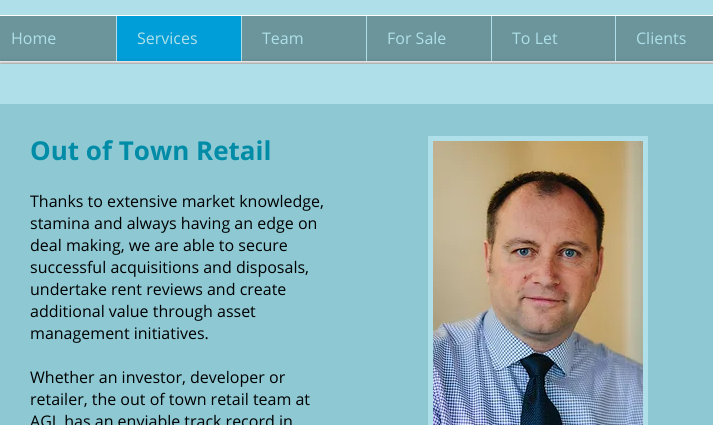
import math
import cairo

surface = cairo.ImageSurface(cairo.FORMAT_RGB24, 713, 425)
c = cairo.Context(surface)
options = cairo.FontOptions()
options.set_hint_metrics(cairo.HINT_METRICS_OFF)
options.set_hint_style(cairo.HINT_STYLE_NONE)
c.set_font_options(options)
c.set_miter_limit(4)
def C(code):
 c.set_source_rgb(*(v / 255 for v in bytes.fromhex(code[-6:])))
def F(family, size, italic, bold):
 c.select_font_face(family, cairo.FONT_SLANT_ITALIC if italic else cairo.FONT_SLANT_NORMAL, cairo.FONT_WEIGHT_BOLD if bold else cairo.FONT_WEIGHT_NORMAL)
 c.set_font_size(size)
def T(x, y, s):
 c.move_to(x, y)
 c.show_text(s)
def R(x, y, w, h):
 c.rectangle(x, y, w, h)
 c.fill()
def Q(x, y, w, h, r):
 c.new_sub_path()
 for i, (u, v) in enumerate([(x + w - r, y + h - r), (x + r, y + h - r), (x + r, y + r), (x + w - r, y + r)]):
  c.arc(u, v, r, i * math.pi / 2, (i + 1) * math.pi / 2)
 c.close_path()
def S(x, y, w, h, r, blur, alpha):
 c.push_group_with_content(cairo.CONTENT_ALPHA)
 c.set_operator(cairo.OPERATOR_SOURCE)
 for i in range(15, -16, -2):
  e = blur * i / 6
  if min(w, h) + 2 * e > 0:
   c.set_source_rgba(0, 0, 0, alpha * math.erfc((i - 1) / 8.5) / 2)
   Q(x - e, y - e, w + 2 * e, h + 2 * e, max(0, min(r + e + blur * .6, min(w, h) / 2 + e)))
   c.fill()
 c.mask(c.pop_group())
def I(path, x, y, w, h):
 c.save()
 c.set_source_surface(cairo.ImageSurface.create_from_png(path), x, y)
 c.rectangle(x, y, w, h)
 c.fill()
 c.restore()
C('ffffff')
c.paint()
C('afe0e9')
R(0,0,713,15)
C('6b949b')
R(0,16,713,45)
F('Open Sans',16,0,0)
C('afe0e9')
T(11,44,'Home')
C('009ed8')
R(117,16,124,45)
C('afe0e9')
R(116,16,1,45)
T(137,44,'Services')
R(241,16,1,45)
T(262,44,'Team')
R(366,16,1,45)
T(387,44,'For Sale')
R(491,16,1,45)
T(512,44,'To Let')
R(615,16,1,45)
T(636,44,'Clients')
C('000000')
S(0,64,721,40,0,2.5,.7)
C('afe0e9')
R(0,64,713,40)
C('8dc8d3')
R(0,104,713,321)
F('Open Sans',26,0,1)
C('008ca7')
T(30,160,'Out of Town Retail')
C('afe0e9')
R(428,136,220,289)
I('1.png',433,141,210,284)
F('Open Sans',16,0,0)
C('000000')
T(30,207,'Thanks to extensive market knowledge,')
T(30,229,'stamina and always having an edge on')
T(30,251,'deal making, we are able to secure')
T(30,273,'successful acquisitions and disposals,')
T(30,295,'undertake rent reviews and create')
T(30,317,'additional value through asset')
T(30,339,'management initiatives.')
T(30,383,'Whether an investor, developer or')
T(30,405,'retailer, the out of town retail team at')
T(30,427,'AGL has an enviable track record in')
surface.write_to_png('o.png')
